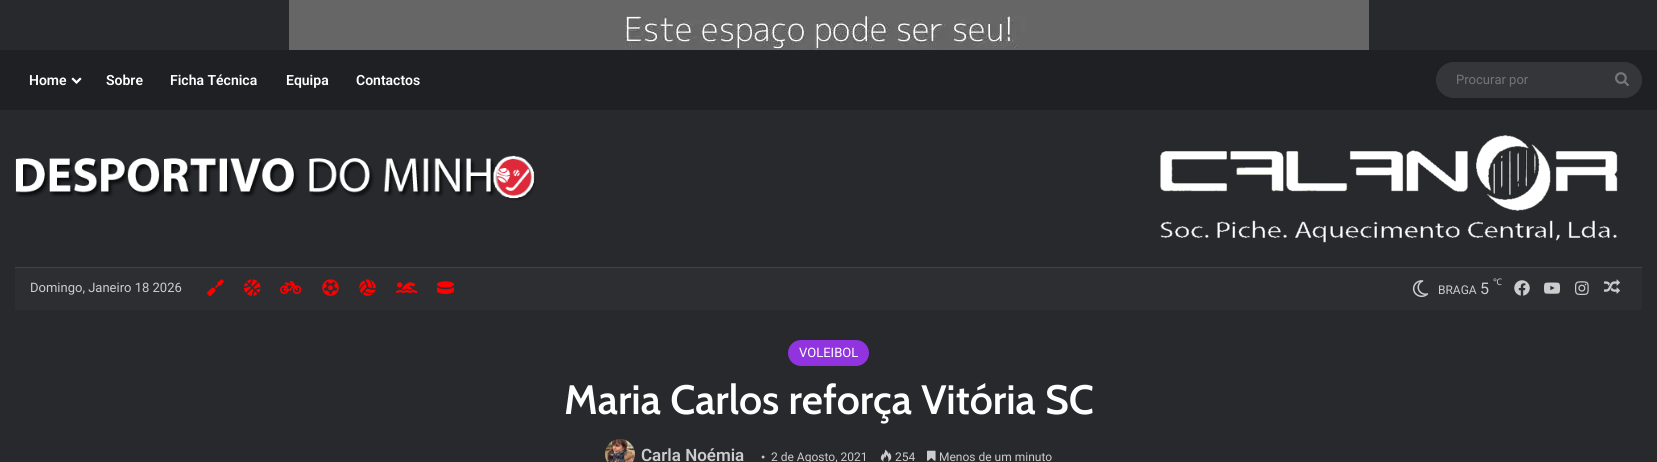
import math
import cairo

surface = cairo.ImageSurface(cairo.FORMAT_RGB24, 1657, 462)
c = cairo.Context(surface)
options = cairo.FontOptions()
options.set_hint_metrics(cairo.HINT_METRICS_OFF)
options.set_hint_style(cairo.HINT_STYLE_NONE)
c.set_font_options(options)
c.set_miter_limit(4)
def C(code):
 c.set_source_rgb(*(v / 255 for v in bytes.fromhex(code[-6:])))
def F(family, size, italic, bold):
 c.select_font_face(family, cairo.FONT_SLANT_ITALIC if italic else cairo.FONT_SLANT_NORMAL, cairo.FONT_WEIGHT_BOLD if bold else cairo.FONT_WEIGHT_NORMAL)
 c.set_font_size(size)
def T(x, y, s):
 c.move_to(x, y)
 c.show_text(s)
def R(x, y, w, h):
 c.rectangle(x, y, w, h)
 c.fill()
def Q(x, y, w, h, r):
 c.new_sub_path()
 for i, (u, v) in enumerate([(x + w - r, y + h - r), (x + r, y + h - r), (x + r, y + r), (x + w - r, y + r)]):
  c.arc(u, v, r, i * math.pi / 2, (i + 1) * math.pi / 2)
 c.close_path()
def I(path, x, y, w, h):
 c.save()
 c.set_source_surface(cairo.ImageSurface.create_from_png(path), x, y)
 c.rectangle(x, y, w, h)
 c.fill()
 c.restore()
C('27292d')
c.paint()
I('1.png',289,0,1080,50)
C('1f2024')
R(0,50,1657,60)
F('Roboto SemiBold',14,0,0)
C('ffffff')
T(29,85,'Home')
I('2.png',71,77,11,7)
T(106,85,'Sobre')
T(170,85,'Ficha Técnica')
T(286,85,'Equipa')
T(356,85,'Contactos')
C('35363a')
Q(1436,62,206,36,18)
c.fill()
F('Roboto',13,0,0)
C('757575')
T(1456,84,'Procurar por')
I('3.png',1615,72,14,14)
I('4.png',15,155,521,46)
I('5.png',1160,135,458,108)
C('2c2e32')
R(15,268,1627,42)
C('414347')
R(15,267,1627,1)
C('cccccc')
T(30,292,'Domingo, Janeiro 18 2026')
I('6.png',207,279,17,18)
I('7.png',244,279,17,17)
I('8.png',280,281,22,13)
I('9.png',322,279,17,17)
I('10.png',359,279,17,17)
I('11.png',396,282,22,11)
I('12.png',437,281,17,13)
I('13.png',1412,280,17,18)
F('Roboto',12,0,0)
T(1438,294,'BRAGA')
F('Roboto',16,0,0)
T(1480,294,'5')
F('Noto Sans',9,0,0)
T(1493,285,'℃')
I('14.png',1514,280,16,16)
I('15.png',1544,282,16,12)
I('16.png',1575,281,14,14)
I('17.png',1604,279,16,15)
C('9233e0')
Q(788,340,81,26,13)
c.fill()
F('Roboto',13,0,0)
C('ffffff')
T(799,357,'VOLEIBOL')
F('Cabin SemiBold',41,0,0)
T(564,414,'Maria Carlos reforça Vitória SC')
I('18.png',605,439,30,23)
F('Roboto SemiBold',17,0,0)
C('cccccc')
T(641,461,'Carla Noémia')
F('Liberation Serif',12,0,0)
T(761,461,'•')
F('Roboto',12,0,0)
T(771,461,'2 de Agosto, 2021')
I('19.png',880,449,12,13)
T(895,461,'254')
I('20.png',927,450,9,11)
T(939,461,'Menos de um minuto')
surface.write_to_png('o.png')
